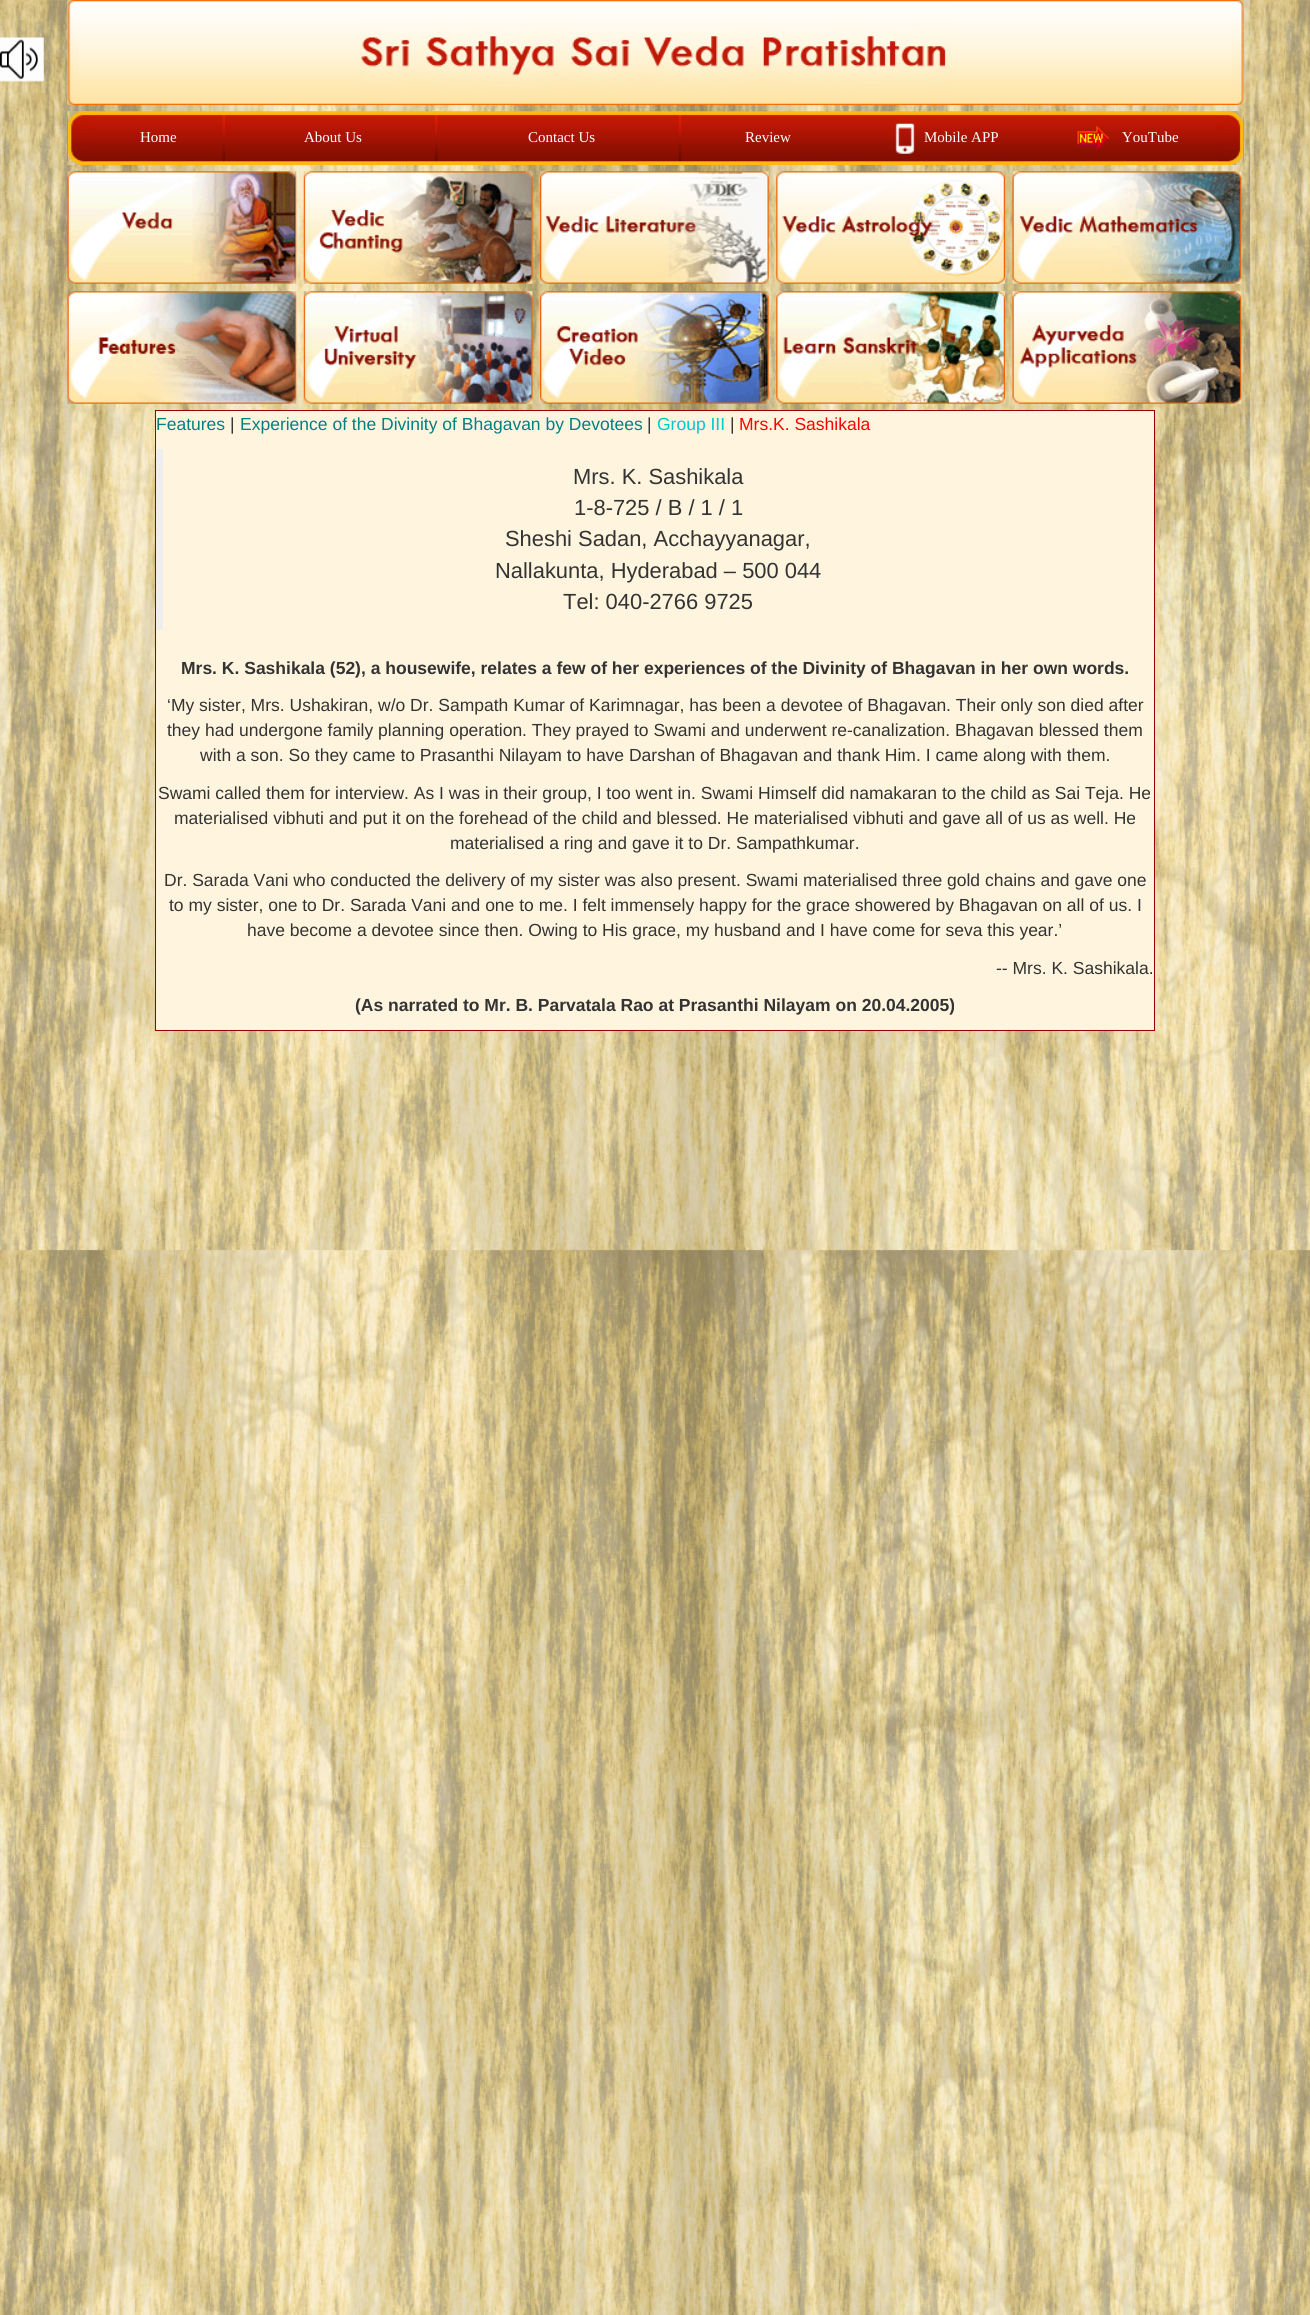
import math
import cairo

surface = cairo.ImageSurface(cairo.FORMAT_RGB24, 1310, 2315)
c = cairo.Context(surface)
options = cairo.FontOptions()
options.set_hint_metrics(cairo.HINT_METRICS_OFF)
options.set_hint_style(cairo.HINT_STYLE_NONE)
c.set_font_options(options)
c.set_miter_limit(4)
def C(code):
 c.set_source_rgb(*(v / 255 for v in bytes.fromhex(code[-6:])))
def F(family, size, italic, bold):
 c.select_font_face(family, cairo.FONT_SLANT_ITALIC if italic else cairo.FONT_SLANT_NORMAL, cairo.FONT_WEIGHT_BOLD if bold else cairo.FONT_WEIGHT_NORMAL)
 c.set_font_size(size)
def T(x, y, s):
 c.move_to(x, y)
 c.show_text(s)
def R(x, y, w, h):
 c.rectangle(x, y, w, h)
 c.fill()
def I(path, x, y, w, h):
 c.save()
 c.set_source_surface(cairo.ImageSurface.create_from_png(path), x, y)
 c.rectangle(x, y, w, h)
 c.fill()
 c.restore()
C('ffffff')
c.paint()
I('1.png',0,0,1310,2315)
I('2.png',0,37,44,45)
I('3.png',67,0,1177,105)
I('4.png',67,0,12,105)
I('5.png',360,1,590,103)
I('6.png',1232,0,12,105)
I('7.png',67,111,1177,54)
I('8.png',67,111,28,54)
F('Liberation Serif',15,0,0)
C('ffffff')
T(140,142,'Home')
I('9.png',222,111,3,51)
T(304,142,'About Us')
I('10.png',435,111,3,51)
T(528,142,'Contact Us')
I('11.png',678,111,4,51)
T(745,142,'Review')
I('12.png',895,123,20,31)
T(924,142,'Mobile APP')
I('13.png',1077,126,32,24)
T(1122,142,'YouTube')
I('14.png',1216,111,28,54)
I('15.png',67,171,230,113)
I('16.png',303,171,230,113)
I('17.png',540,171,229,113)
I('18.png',776,171,229,113)
I('19.png',1012,171,230,113)
I('20.png',67,291,230,113)
I('21.png',303,291,230,113)
I('22.png',540,291,229,113)
I('23.png',776,291,229,113)
I('24.png',1012,291,230,113)
C('fff5df')
R(156,411,998,619)
C('990000')
R(155,410,1000,1)
R(1154,410,1,621)
R(155,1030,1000,1)
R(155,410,1,621)
F('Liberation Sans',17.5,0,0)
C('008080')
T(156,430,'Features')
C('333333')
T(230,430,'|')
C('008080')
T(240,430,'Experience of the Divinity of Bhagavan by Devotees')
C('333333')
T(647,430,'|')
C('00c7cc')
T(657,430,'Group III')
C('333333')
T(730,430,'|')
C('ff0000')
T(739,430,'Mrs.K. Sashikala')
C('eeeeee')
R(156,449,7,181)
F('Liberation Sans',21.9,0,0)
C('333333')
T(573,484,'Mrs. K. Sashikala')
T(574,515,'1-8-725 / B / 1 / 1')
T(505,546,'Sheshi Sadan, Acchayyanagar,')
T(495,578,'Nallakunta, Hyderabad – 500 044')
T(563,609,'Tel: 040-2766 9725')
F('Liberation Sans',17.5,0,1)
T(181,674,'Mrs. K. Sashikala (52), a housewife, relates a few of her experiences of the Divinity of Bhagavan in her own words.')
F('Liberation Sans',17.5,0,0)
T(167,711,'‘My sister, Mrs. Ushakiran, w/o Dr. Sampath Kumar of Karimnagar, has been a devotee of Bhagavan. Their only son died after')
T(167,736,'they had undergone family planning operation. They prayed to Swami and underwent re-canalization. Bhagavan blessed them')
T(200,761,'with a son. So they came to Prasanthi Nilayam to have Darshan of Bhagavan and thank Him. I came along with them.')
T(158,799,'Swami called them for interview. As I was in their group, I too went in. Swami Himself did namakaran to the child as Sai Teja. He')
T(174,824,'materialised vibhuti and put it on the forehead of the child and blessed. He materialised vibhuti and gave all of us as well. He')
T(450,849,'materialised a ring and gave it to Dr. Sampathkumar.')
T(164,886,'Dr. Sarada Vani who conducted the delivery of my sister was also present. Swami materialised three gold chains and gave one')
T(169,911,'to my sister, one to Dr. Sarada Vani and one to me. I felt immensely happy for the grace showered by Bhagavan on all of us. I')
T(247,936,'have become a devotee since then. Owing to His grace, my husband and I have come for seva this year.’')
T(996,974,'-- Mrs. K. Sashikala.')
F('Liberation Sans',17.5,0,1)
T(355,1011,'(As narrated to Mr. B. Parvatala Rao at Prasanthi Nilayam on 20.04.2005)')
surface.write_to_png('o.png')
